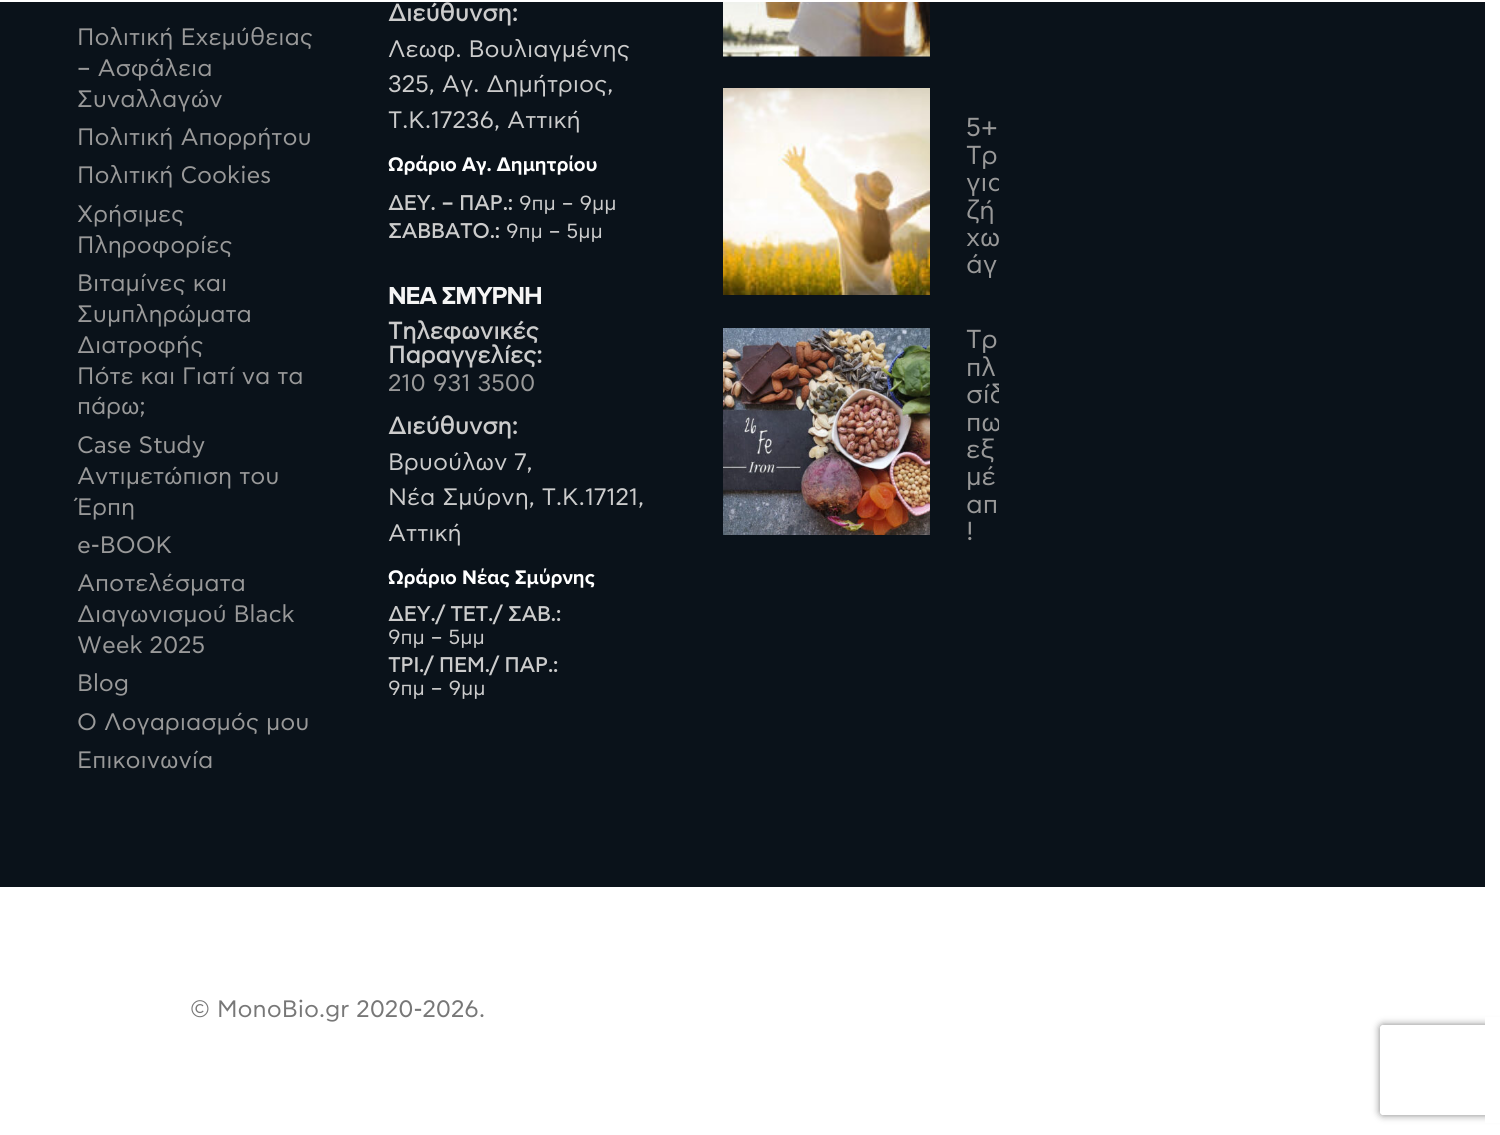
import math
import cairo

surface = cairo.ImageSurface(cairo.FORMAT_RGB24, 1500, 1135)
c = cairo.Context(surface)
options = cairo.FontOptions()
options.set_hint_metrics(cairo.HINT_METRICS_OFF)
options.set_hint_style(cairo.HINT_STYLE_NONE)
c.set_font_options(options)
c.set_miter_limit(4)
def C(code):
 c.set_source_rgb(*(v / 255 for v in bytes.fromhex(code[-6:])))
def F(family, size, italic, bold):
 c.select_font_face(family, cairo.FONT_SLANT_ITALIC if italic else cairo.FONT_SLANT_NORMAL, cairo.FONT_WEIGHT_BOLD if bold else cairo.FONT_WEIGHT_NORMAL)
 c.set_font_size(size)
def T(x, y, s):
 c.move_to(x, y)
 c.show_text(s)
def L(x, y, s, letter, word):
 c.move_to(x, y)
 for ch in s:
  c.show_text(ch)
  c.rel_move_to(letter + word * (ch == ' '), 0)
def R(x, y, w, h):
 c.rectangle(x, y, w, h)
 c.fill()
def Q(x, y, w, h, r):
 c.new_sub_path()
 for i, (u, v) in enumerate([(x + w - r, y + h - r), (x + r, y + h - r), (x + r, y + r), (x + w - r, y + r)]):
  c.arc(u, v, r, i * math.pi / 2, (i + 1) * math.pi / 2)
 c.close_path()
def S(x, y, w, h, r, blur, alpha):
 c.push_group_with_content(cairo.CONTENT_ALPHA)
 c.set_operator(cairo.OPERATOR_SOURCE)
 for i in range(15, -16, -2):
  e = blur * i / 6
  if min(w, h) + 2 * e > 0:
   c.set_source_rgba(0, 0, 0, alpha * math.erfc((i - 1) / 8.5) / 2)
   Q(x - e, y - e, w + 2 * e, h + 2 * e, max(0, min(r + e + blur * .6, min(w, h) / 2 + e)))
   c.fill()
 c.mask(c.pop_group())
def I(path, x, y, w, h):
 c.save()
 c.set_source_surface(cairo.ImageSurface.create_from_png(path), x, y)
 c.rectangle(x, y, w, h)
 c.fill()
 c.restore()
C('ffffff')
c.paint()
C('0a121a')
R(0,2,1485,885)
F('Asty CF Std',23.75,0,0)
C('999999')
T(77,45,'Πολιτική Εχεμύθειας')
T(77,76,'– Ασφάλεια')
T(77,107,'Συναλλαγών')
T(77,145,'Πολιτική Απορρήτου')
T(77,183,'Πολιτική Cookies')
T(77,222,'Χρήσιμες')
T(77,253,'Πληροφορίες')
T(77,291,'Βιταμίνες και')
T(77,322,'Συμπληρώματα')
T(77,353,'Διατροφής')
T(77,384,'Πότε και Γιατί να τα')
T(77,414,'πάρω;')
T(77,453,'Case Study')
T(77,484,'Αντιμετώπιση του')
T(77,515,'Έρπη')
T(77,553,'e-BOOK')
T(77,591,'Αποτελέσματα')
T(77,622,'Διαγωνισμού Black')
T(77,653,'Week 2025')
T(77,691,'Blog')
T(77,730,'Ο Λογαριασμός μου')
T(77,768,'Επικοινωνία')
F('Asty CF Std',23.75,0,1)
C('cccccc')
T(388,21,'Διεύθυνση:')
F('Asty CF Std',23.75,0,0)
T(388,57,'Λεωφ. Βουλιαγμένης')
T(388,92,'325, Αγ. Δημήτριος,')
T(388,128,'Τ.Κ.17236, Αττική')
F('Proxima Nova',20.4,0,1)
C('ffffff')
T(388,171,'Ωράριο Αγ. Δημητρίου')
F('Asty CF Std',20.4,0,1)
C('cccccc')
T(388,210,'ΔΕΥ. – ΠΑΡ.:')
F('Asty CF Std',20.4,0,0)
T(519,210,'9πμ – 9μμ')
F('Asty CF Std',20.4,0,1)
T(388,238,'ΣΑΒBATO.:')
F('Asty CF Std',20.4,0,0)
T(506,238,'9πμ – 5μμ')
F('Proxima Nova',25.5,0,1)
C('f5f5f5')
L(388,304,'ΝΕΑ ΣΜΥΡΝΗ',-1,0)
F('Asty CF Std',23.75,0,1)
C('cccccc')
T(388,339,'Τηλεφωνικές')
T(388,363,'Παραγγελίες:')
F('Asty CF Std',23.75,0,0)
C('999999')
T(388,391,'210 931 3500')
F('Asty CF Std',23.75,0,1)
C('cccccc')
T(388,434,'Διεύθυνση:')
F('Asty CF Std',23.75,0,0)
T(388,470,'Βρυούλων 7,')
T(388,505,'Νέα Σμύρνη, Τ.Κ.17121,')
T(388,541,'Αττική')
F('Proxima Nova',20.4,0,1)
C('ffffff')
T(388,584,'Ωράριο Νέας Σμύρνης')
F('Asty CF Std',20.4,0,1)
C('cccccc')
T(388,621,'ΔΕΥ./ ΤΕΤ./ ΣΑΒ.:')
F('Asty CF Std',20.4,0,0)
T(388,644,'9πμ – 5μμ')
F('Asty CF Std',20.4,0,1)
T(388,672,'ΤΡΙ./ ΠΕΜ./ ΠΑΡ.:')
F('Asty CF Std',20.4,0,0)
T(388,695,'9πμ – 9μμ')
I('1.png',723,2,207,55)
I('2.png',723,88,207,207)
F('Asty CF Std',26,0,0)
C('999999')
T(966,136,'5+')
T(966,164,'Τρ')
c.save()
c.rectangle(723,81,276,233)
c.clip()
T(966,191,'για')
c.restore()
T(966,219,'ζή')
c.save()
c.rectangle(723,81,276,233)
c.clip()
T(966,246,'χω')
c.restore()
T(966,273,'άγ')
I('3.png',723,328,207,207)
T(966,348,'Τρ')
T(966,376,'πλ')
c.save()
c.rectangle(723,321,276,233)
c.clip()
T(966,403,'σίδ')
T(966,431,'πω')
c.restore()
T(966,458,'εξ')
T(966,485,'μέ')
T(966,513,'απ')
T(966,540,'!')
F('Asty CF Std',23.75,0,0)
C('777777')
T(190,1017,'© MonoBio.gr 2020-2026.')
c.save()
c.set_fill_rule(cairo.FILL_RULE_EVEN_ODD)
c.new_path()
c.move_to(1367,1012)
c.line_to(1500,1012)
c.line_to(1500,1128)
c.line_to(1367,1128)
c.close_path()
c.move_to(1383,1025)
c.line_to(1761,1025)
c.curve_to(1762.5,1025,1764,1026.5,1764,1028)
c.line_to(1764,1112)
c.curve_to(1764,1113.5,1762.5,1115,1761,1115)
c.line_to(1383,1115)
c.curve_to(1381.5,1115,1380,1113.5,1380,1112)
c.line_to(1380,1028)
c.curve_to(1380,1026.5,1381.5,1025,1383,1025)
c.close_path()
c.clip()
C('808080')
S(1380,1025,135,90,3,4,1)
c.restore()
C('ffffff')
R(1485,1017,15,106)
surface.write_to_png('o.png')
